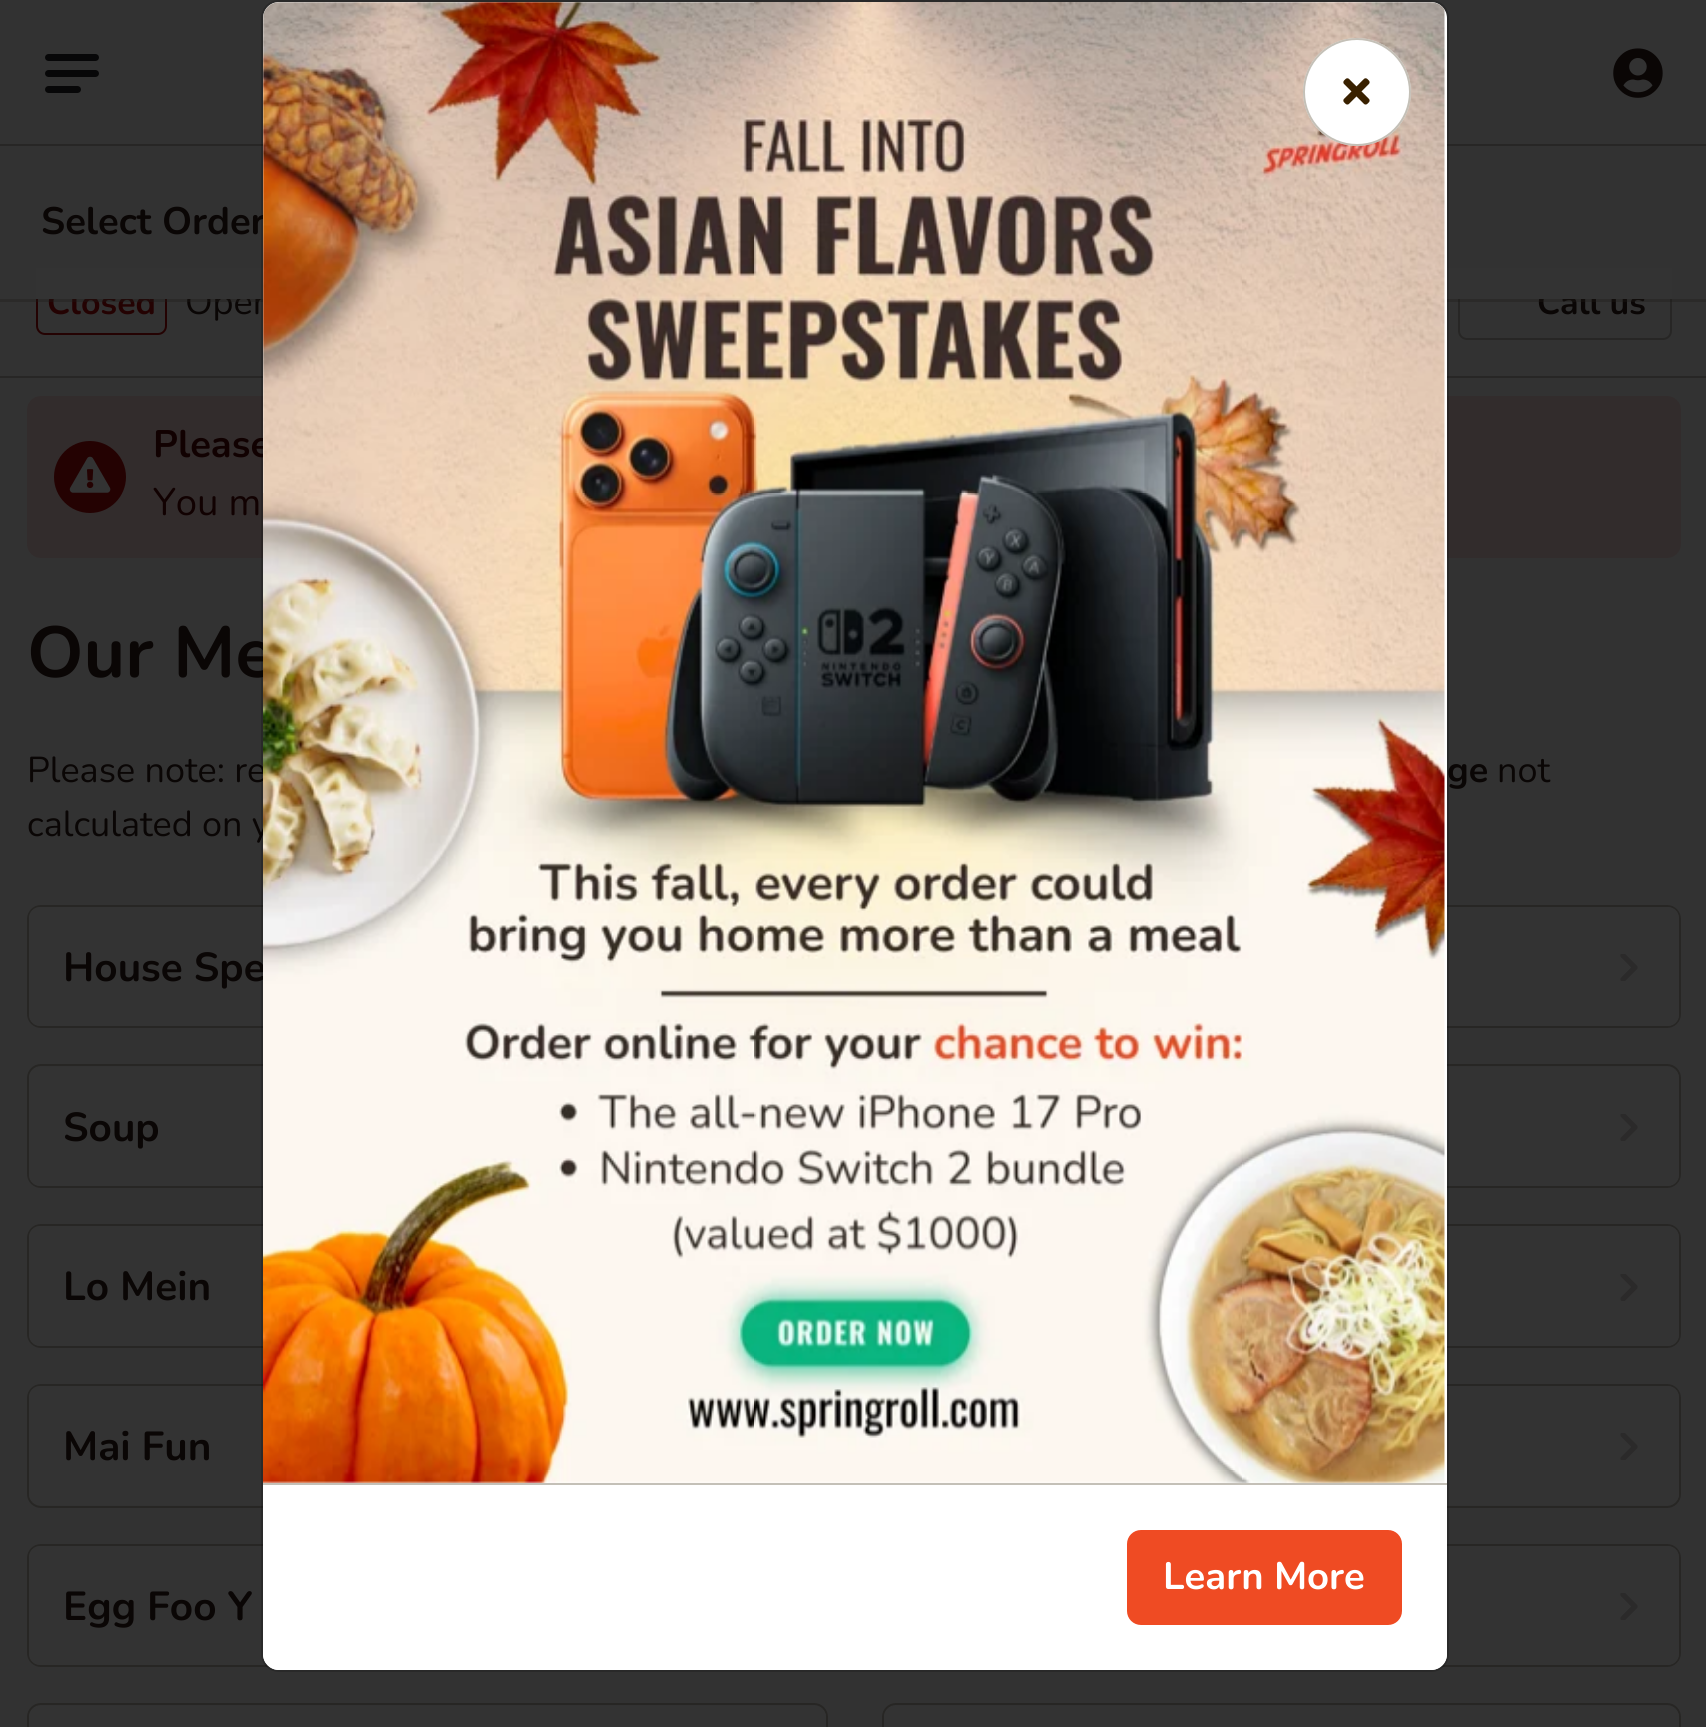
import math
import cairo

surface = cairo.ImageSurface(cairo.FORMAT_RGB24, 1706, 1727)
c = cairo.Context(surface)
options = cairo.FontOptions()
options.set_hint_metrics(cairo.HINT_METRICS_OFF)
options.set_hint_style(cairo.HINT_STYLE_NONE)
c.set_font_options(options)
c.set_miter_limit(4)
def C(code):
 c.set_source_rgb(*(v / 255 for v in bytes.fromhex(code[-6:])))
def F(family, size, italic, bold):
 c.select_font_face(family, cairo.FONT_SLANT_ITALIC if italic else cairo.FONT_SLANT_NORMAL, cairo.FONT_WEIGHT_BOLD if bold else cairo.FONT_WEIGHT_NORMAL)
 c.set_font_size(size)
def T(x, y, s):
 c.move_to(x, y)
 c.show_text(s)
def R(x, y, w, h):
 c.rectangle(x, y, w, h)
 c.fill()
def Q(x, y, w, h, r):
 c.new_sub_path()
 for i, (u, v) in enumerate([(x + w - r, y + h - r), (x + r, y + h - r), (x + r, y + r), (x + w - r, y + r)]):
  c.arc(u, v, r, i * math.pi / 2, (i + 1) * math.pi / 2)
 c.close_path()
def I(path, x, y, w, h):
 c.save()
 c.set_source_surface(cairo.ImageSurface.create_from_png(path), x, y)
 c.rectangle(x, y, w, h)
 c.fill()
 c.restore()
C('323232')
c.paint()
Q(37,273,129,61,8)
C('240202')
c.stroke()
F('Nunito',34,0,1)
T(47,314,'Closed')
F('Nunito',36,0,0)
C('0a0605')
T(185,314,'Open')
Q(1459,269,212,70,8)
C('272625')
c.stroke()
F('Nunito',34,0,1)
C('0a0605')
T(1537,314,'Call us')
c.set_source_rgba(0.118,0.11,0.098,0.35)
c.new_path()
c.move_to(0,299)
c.line_to(0,302)
c.line_to(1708,302)
c.line_to(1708,2)
c.line_to(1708,299)
c.close_path()
c.fill()
C('333333')
R(36,268,1636,31)
C('070708')
Q(45,54,54,7,3.5)
c.fill()
Q(45,70,54,7,3.5)
c.fill()
Q(45,86,36,7,3.5)
c.fill()
I('1.png',1613,48,50,50)
C('272625')
R(0,144,1706,2)
F('Nunito',38.25,0,1)
C('0a0605')
T(41,234,'Select Order')
C('272625')
R(0,376,1706,2)
C('322c2c')
Q(27,396,1654,162,14)
c.fill()
C('240202')
c.arc(90,477,36,0,2 * math.pi)
c.fill()
I('2.png',69,456,42,37)
C('110101')
T(153,457,'Please')
F('Nunito',38.25,0,0)
T(153,515,'You m')
F('Nunito',72,0,1)
C('0a0605')
T(27,677,'Our Me')
F('Nunito',36,0,0)
T(27,782,'Please note: re')
F('Nunito',36,0,1)
T(1447,782,'ge')
F('Nunito',36,0,0)
T(1497,782,'not')
T(27,836,'calculated on y')
Q(28,906,799,121,13)
C('272624')
c.stroke()
C('333333')
Q(29,907,797,119,11)
c.fill()
F('Nunito',40.5,0,1)
C('0a0605')
T(63,981,'House Spe')
Q(883,906,797,121,13)
C('272624')
c.stroke()
C('333333')
Q(884,907,795,119,11)
c.fill()
I('3.png',1620,954,18,27)
Q(28,1065,799,122,13)
C('272624')
c.stroke()
C('333333')
Q(29,1067,797,119,11)
c.fill()
C('0a0605')
T(63,1141,'Soup')
Q(883,1065,797,122,13)
C('272624')
c.stroke()
C('333333')
Q(884,1067,795,119,11)
c.fill()
I('4.png',1620,1114,18,27)
Q(28,1225,799,122,13)
C('272624')
c.stroke()
C('333333')
Q(29,1226,797,120,11)
c.fill()
C('0a0605')
T(63,1300,'Lo Mein')
Q(883,1225,797,122,13)
C('272624')
c.stroke()
C('333333')
Q(884,1226,795,120,11)
c.fill()
I('5.png',1620,1274,18,27)
Q(28,1385,799,122,13)
C('272624')
c.stroke()
C('333333')
Q(29,1386,797,119,11)
c.fill()
C('0a0605')
T(63,1460,'Mai Fun')
Q(883,1385,797,122,13)
C('272624')
c.stroke()
C('333333')
Q(884,1386,795,119,11)
c.fill()
I('6.png',1620,1433,18,27)
Q(28,1545,799,121,13)
C('272624')
c.stroke()
C('333333')
Q(29,1546,797,119,11)
c.fill()
C('0a0605')
T(63,1620,'Egg Foo Y')
Q(883,1545,797,121,13)
C('272624')
c.stroke()
C('333333')
Q(884,1546,795,119,11)
c.fill()
I('3.png',1620,1593,18,27)
Q(28,1704,799,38,13)
C('272624')
c.stroke()
C('333333')
Q(29,1706,797,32,11)
c.fill()
Q(883,1704,797,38,13)
C('272624')
c.stroke()
C('333333')
Q(884,1706,795,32,11)
c.fill()
C('ffffff')
Q(263,2,1184,1668,16)
c.fill()
Q(262,1,1186,1670,17)
c.set_source_rgba(0,0,0,0.18)
c.stroke()
I('7.png',263,2,1182,1481)
C('ffffff')
c.arc(1357,92,54,0,2 * math.pi)
c.fill()
c.arc(1357,92,53,0,2 * math.pi)
c.set_source_rgba(0.58,0.553,0.486,0.55)
c.stroke()
I('8.png',1343,78,27,27)
C('ffffff')
c.new_path()
c.move_to(263,1483)
c.line_to(1447,1483)
c.line_to(1447,1654)
c.curve_to(1447,1663,1440,1670,1431,1670)
c.line_to(279,1670)
c.curve_to(270,1670,263,1663,263,1654)
c.close_path()
c.fill()
C('c4c0b7')
R(263,1483,1184,2)
C('ef4b23')
Q(1128,1531,273,93,13)
c.fill_preserve()
c.stroke()
F('Nunito',38.25,0,1)
C('ffffff')
T(1163,1589,'Learn More')
surface.write_to_png('o.png')
